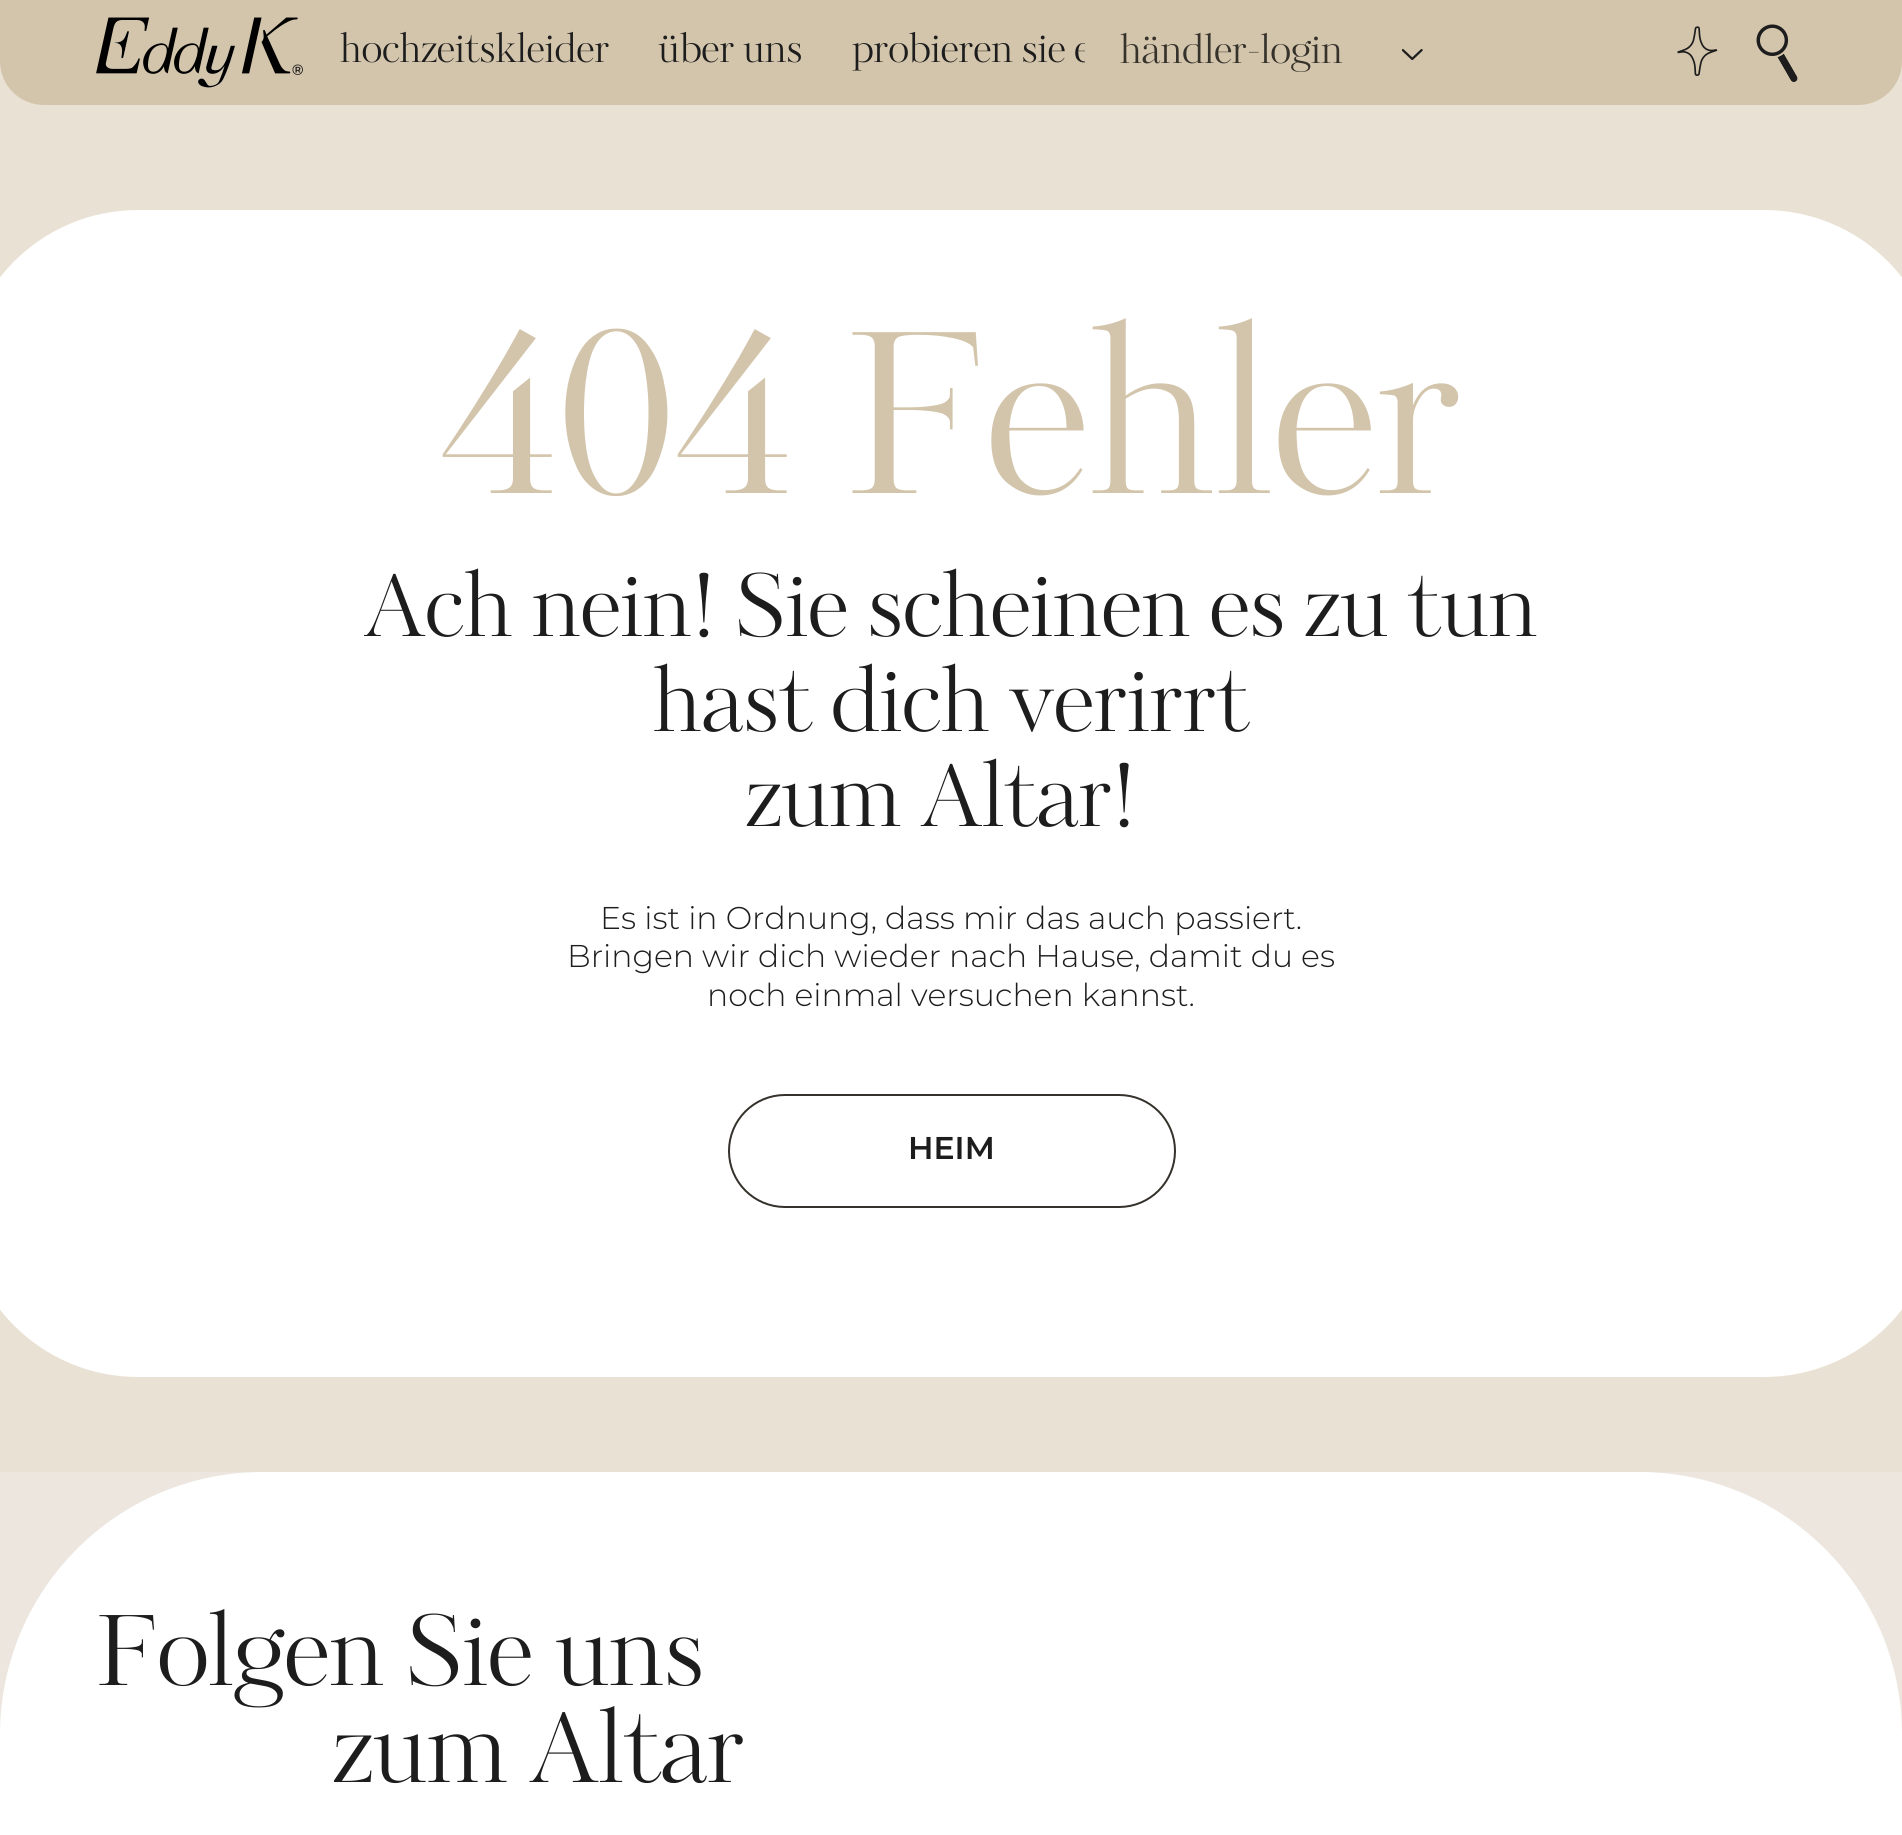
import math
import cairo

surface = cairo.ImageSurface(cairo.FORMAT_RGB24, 1902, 1835)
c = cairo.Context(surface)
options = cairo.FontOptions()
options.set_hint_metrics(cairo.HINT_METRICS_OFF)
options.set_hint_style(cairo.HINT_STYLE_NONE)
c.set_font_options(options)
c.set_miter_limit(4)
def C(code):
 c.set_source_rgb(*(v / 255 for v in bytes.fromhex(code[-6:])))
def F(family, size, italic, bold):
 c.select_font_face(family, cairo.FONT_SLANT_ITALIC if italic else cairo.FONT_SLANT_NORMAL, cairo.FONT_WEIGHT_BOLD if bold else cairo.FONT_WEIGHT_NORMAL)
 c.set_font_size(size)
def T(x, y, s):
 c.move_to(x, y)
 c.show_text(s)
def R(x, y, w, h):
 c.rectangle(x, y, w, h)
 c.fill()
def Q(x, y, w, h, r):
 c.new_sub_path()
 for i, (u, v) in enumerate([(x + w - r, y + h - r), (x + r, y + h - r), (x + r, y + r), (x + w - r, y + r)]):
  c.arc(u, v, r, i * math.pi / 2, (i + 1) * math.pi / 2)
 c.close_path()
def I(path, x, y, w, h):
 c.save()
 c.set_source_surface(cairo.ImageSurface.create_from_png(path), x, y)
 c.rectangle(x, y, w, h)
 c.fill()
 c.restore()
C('e9e1d3')
c.paint()
C('d3c5ab')
c.new_path()
c.move_to(0,0)
c.line_to(1902,0)
c.line_to(1902,61)
c.curve_to(1902,85.5,1882.5,105,1858,105)
c.line_to(44,105)
c.curve_to(19.5,105,0,85.5,0,61)
c.close_path()
c.fill()
I('1.png',96,17,207,71)
F('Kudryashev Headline',38.5,0,0)
C('1d1d1d')
T(340,62,'hochzeitskleider')
T(658,62,'über uns')
c.save()
c.rectangle(322,14,763,79)
c.clip()
T(852,62,'probieren sie e')
c.restore()
C('35312b')
T(1120,63,'händler-login')
I('2.png',1402,49,21,11)
I('3.png',1677,26,41,50)
I('4.png',1756,24,42,58)
C('ffffff')
Q(-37,210,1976,1167,175)
c.fill()
F('Kudryashev Headline',222.5,0,0)
C('d3c5ab')
T(440,493,'404 Fehler')
F('Kudryashev Headline',86,0,0)
C('1d1d1d')
T(364,636,'Ach nein! Sie scheinen es zu tun')
T(653,731,'hast dich verirrt')
T(746,826,'zum Altar!')
F('Montserrat Light',31.5,0,0)
T(600,929,'Es ist in Ordnung, dass mir das auch passiert.')
T(567,967,'Bringen wir dich wieder nach Hause, damit du es')
T(707,1006,'noch einmal versuchen kannst.')
Q(729,1095,446,112,56)
C('35312b')
c.stroke()
F('Montserrat SemiBold',31.5,0,0)
C('1d1d1d')
T(908,1159,'HEIM')
C('ece6df')
R(0,1472,1902,263)
C('ffffff')
c.new_path()
c.move_to(263,1472)
c.line_to(1639,1472)
c.curve_to(1784.5,1472,1902,1589.5,1902,1735)
c.line_to(1902,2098)
c.line_to(0,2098)
c.line_to(0,1735)
c.curve_to(0,1589.5,117.5,1472,263,1472)
c.close_path()
c.fill()
F('Kudryashev Headline',96.75,0,0)
C('1d1d1d')
T(95,1685,'Folgen Sie uns')
T(333,1782,'zum Altar')
surface.write_to_png('o.png')
